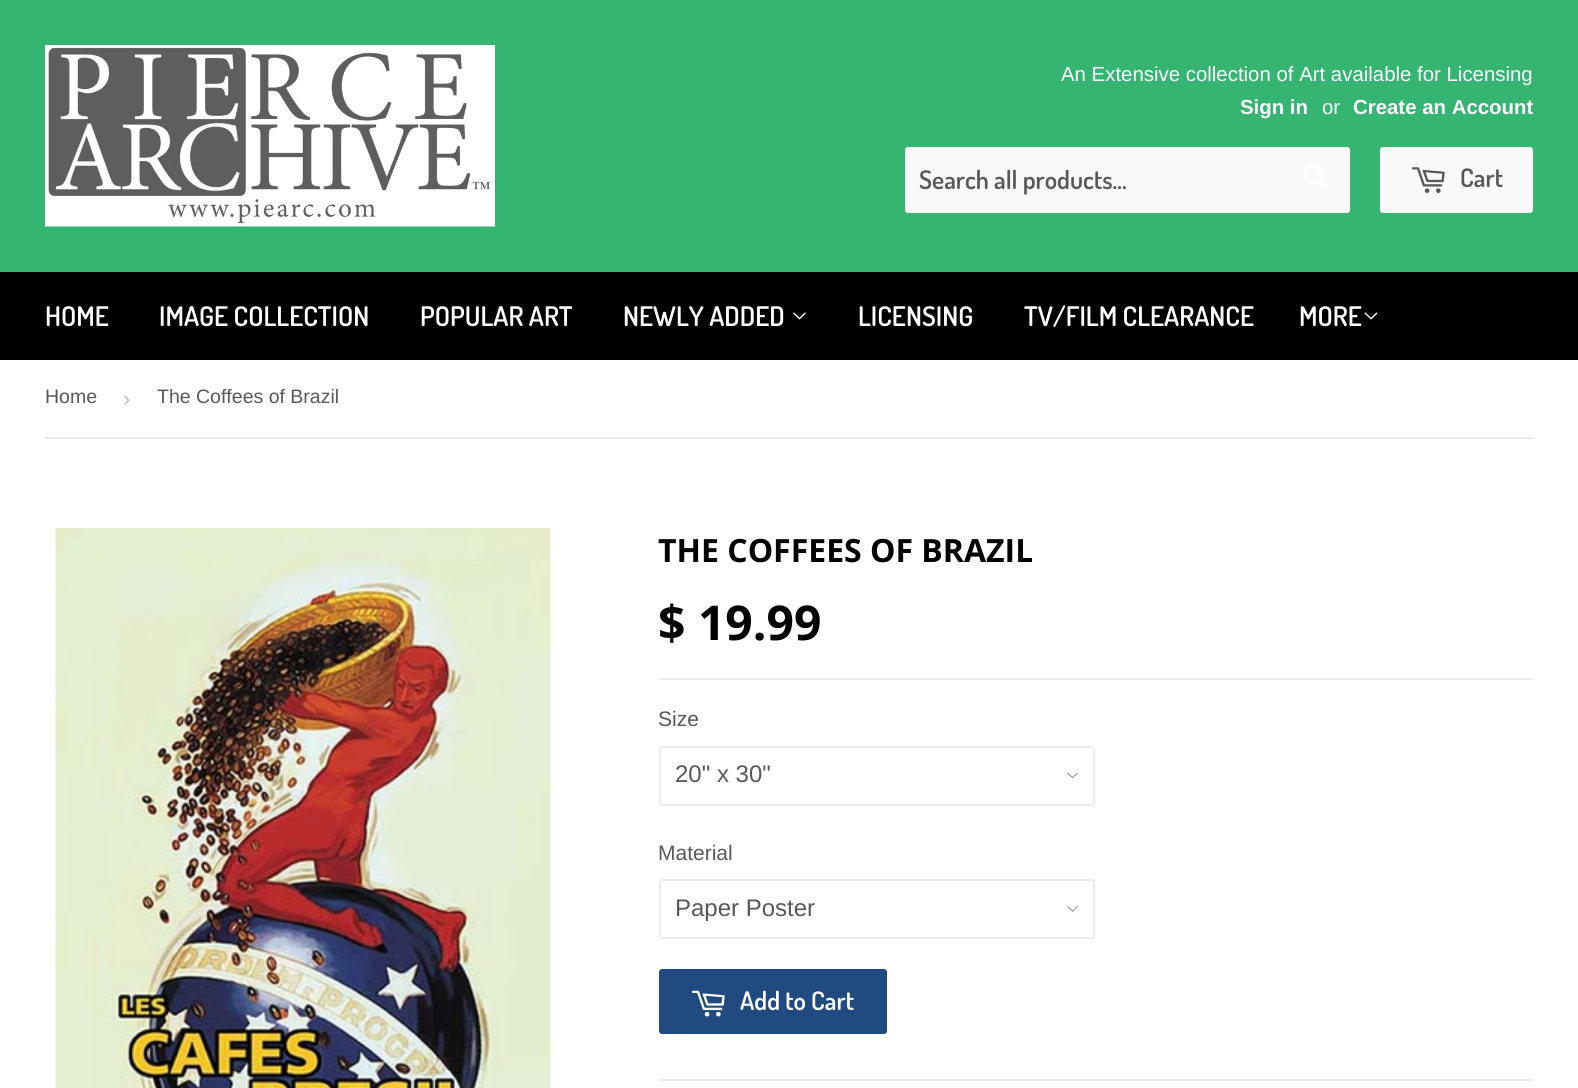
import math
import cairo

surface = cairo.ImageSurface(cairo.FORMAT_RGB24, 1578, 1088)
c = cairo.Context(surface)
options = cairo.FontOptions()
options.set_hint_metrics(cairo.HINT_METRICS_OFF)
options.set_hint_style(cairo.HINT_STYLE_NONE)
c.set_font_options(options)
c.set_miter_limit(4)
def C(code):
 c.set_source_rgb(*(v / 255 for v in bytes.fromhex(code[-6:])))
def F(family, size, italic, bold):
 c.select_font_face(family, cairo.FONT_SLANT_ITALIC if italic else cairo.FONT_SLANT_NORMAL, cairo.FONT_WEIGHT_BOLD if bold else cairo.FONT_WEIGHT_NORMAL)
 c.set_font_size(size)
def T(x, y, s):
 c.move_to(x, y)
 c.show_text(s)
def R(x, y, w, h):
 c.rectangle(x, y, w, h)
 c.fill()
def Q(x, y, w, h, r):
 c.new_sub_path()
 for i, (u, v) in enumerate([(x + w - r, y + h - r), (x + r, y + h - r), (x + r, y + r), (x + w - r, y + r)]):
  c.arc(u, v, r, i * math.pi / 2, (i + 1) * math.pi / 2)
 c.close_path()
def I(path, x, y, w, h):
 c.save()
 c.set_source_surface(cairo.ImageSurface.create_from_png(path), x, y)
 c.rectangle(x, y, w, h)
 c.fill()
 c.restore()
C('ffffff')
c.paint()
C('36b471')
R(0,0,1578,272)
I('1.png',45,45,450,182)
F('Liberation Sans',20.4,0,0)
C('ffffff')
T(1061,81,'An Extensive collection of Art available for Licensing')
F('Liberation Sans',20.4,0,1)
T(1240,114,'Sign in')
F('Liberation Sans',20.4,0,0)
T(1322,114,'or')
F('Liberation Sans',20.4,0,1)
T(1353,114,'Create an Account')
C('f9f9f9')
Q(905,147,445,66,3)
c.fill()
F('Dosis SemiBold',25.5,0,0)
C('585858')
T(919,189,'Search all products...')
I('2.png',1304,165,26,26)
C('f9f9f9')
Q(1380,147,153,66,3)
c.fill()
I('3.png',1411,167,34,26)
C('585858')
T(1460,187,'Cart')
C('000000')
R(0,272,1578,88)
F('Dosis SemiBold',27,0,0)
C('ffffff')
T(45,326,'HOME')
T(159,326,'IMAGE COLLECTION')
T(420,326,'POPULAR ART')
T(623,326,'NEWLY ADDED')
I('4.png',793,312,13,8)
T(858,326,'LICENSING')
T(1024,326,'TV/FILM CLEARANCE')
T(1299,326,'MORE')
I('5.png',1364,312,14,8)
C('ececec')
R(45,437,1488,2)
F('Liberation Sans',19.5,0,0)
C('585858')
T(45,403,'Home')
F('Liberation Sans',22,0,0)
C('bbbbbb')
T(123,406,'›')
F('Liberation Sans',19.5,0,0)
C('585858')
T(157,403,'The Coffees of Brazil')
I('6.png',55,528,496,560)
F('Open Sans',32,0,1)
C('000000')
T(658,562,'THE COFFEES OF BRAZIL')
F('Open Sans',48,0,1)
T(658,640,'$ 19.99')
C('ececec')
R(659,678,874,2)
F('Liberation Sans',21,0,0)
C('585858')
T(658,726,'Size')
I('7.png',1067,773,11,6)
Q(660,747,434,58,2)
C('ececec')
c.stroke()
F('Liberation Sans',24,0,0)
C('585858')
T(675,782,'20" x 30"')
F('Liberation Sans',21,0,0)
T(658,860,'Material')
I('8.png',1067,906,11,6)
Q(660,880,434,58,2)
C('ececec')
c.stroke()
F('Liberation Sans',24,0,0)
C('585858')
T(675,916,'Paper Poster')
C('204a80')
Q(659,969,228,65,3)
c.fill()
I('9.png',691,990,34,27)
F('Dosis SemiBold',25.5,0,0)
C('ffffff')
T(740,1010,'Add to Cart')
C('ececec')
R(659,1079,874,2)
surface.write_to_png('o.png')
